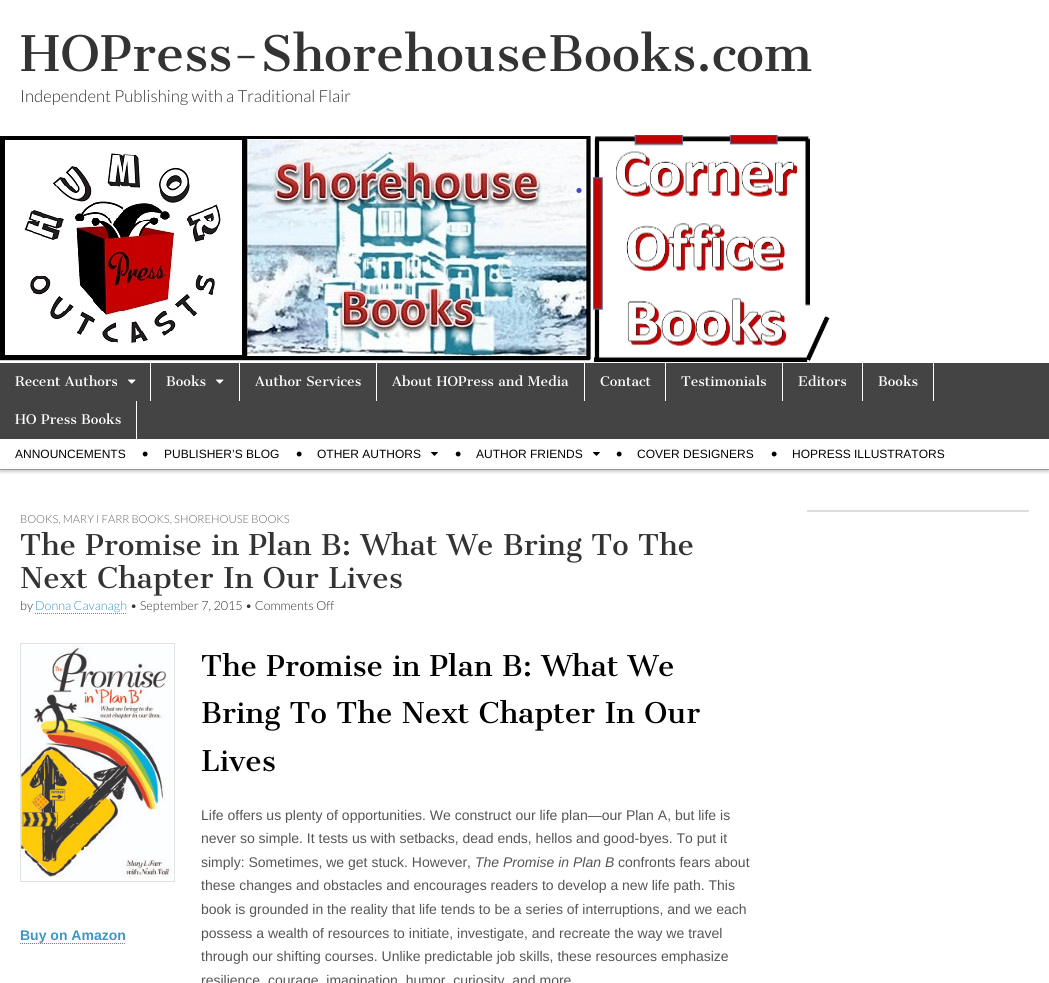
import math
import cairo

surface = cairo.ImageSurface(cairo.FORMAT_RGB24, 1049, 983)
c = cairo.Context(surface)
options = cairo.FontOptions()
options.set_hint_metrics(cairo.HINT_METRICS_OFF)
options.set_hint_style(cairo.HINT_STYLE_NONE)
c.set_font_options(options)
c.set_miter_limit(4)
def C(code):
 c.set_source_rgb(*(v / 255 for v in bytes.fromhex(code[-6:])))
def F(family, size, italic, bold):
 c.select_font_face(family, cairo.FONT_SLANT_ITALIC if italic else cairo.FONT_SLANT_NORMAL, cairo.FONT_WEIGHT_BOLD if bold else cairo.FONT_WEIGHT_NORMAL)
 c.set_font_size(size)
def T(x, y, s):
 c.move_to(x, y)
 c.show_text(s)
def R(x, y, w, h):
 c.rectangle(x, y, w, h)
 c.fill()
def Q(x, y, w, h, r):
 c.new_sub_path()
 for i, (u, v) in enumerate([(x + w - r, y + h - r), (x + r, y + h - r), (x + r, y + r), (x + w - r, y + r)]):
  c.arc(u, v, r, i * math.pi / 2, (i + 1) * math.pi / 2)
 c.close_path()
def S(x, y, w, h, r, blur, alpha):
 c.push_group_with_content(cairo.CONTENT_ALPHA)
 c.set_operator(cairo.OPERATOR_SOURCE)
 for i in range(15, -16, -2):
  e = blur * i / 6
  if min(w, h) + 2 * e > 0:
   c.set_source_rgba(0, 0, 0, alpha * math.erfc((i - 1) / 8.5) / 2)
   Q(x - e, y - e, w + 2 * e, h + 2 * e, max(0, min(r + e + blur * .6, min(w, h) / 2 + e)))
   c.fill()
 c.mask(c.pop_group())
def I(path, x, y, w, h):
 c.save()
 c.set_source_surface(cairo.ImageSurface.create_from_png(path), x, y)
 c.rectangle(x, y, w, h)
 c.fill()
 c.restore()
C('ffffff')
c.paint()
F('Cantata One',48,0,0)
C('333333')
T(20,71,'HOPress-ShorehouseBooks.com')
F('Lato Light',16.75,0,0)
T(20,102,'Independent Publishing with a Traditional Flair')
I('1.png',0,135,830,227)
C('444444')
R(0,363,1049,76)
C('ffffff')
R(150,363,1,38)
F('Cantata One',13,0,0)
T(15,386,'Recent Authors')
I('2.png',128,379,8,5)
R(239,363,1,38)
T(166,386,'Books')
I('2.png',216,379,8,5)
R(376,363,1,38)
T(255,386,'Author Services')
R(584,363,1,38)
T(392,386,'About HOPress and Media')
R(665,363,1,38)
T(600,386,'Contact')
R(782,363,1,38)
T(681,386,'Testimonials')
R(862,363,1,38)
T(798,386,'Editors')
R(933,363,1,38)
T(878,386,'Books')
c.save()
c.rectangle(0,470,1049,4)
c.clip()
C('000000')
S(0,441,1049,31,0,1.5,.2)
c.restore()
R(136,401,1,38)
T(15,424,'HO Press Books')
C('999999')
R(0,469,1049,1)
F('Liberation Sans',12,0,0)
C('000000')
T(15,458,'ANNOUNCEMENTS')
F('Liberation Sans',18,0,0)
T(142,460,'•')
F('Liberation Sans',12,0,0)
T(164,458,'PUBLISHER’S BLOG')
F('Liberation Sans',18,0,0)
T(296,460,'•')
F('Liberation Sans',12,0,0)
T(317,458,'OTHER AUTHORS')
I('3.png',431,452,7,4)
F('Liberation Sans',18,0,0)
T(455,460,'•')
F('Liberation Sans',12,0,0)
T(476,458,'AUTHOR FRIENDS')
I('3.png',593,452,7,4)
F('Liberation Sans',18,0,0)
T(616,460,'•')
F('Liberation Sans',12,0,0)
T(637,458,'COVER DESIGNERS')
F('Liberation Sans',18,0,0)
T(771,460,'•')
F('Liberation Sans',12,0,0)
T(792,458,'HOPRESS ILLUSTRATORS')
C('dddddd')
R(807,510,222,2)
F('Lato Light',11.2,0,0)
C('666666')
T(20,523,'BOOKS, MARY I FARR BOOKS, SHOREHOUSE BOOKS')
F('Cantata One',28,0,0)
C('333333')
T(20,555,'The Promise in Plan B: What We Bring To The')
T(20,588,'Next Chapter In Our Lives')
F('Lato Light',12.6,0,0)
T(20,610,'by')
C('3d97c2')
T(35,610,'Donna Cavanagh')
c.new_path()
c.move_to(35,613.5)
c.line_to(127,613.5)
c.set_line_width(1)
c.set_dash([1,1])
c.stroke()
C('333333')
T(130,610,'• September 7, 2015 • Comments Off')
c.rectangle(20.5,643.5,154,238)
C('e2e2e2')
c.set_dash([])
c.stroke()
I('4.png',21,644,152,234)
F('Liberation Sans',14,0,1)
C('3d97c2')
T(20,940,'Buy on Amazon')
c.new_path()
c.move_to(20,943.5)
c.line_to(126,943.5)
c.set_dash([1,1])
c.stroke()
F('Cantata One',28,0,0)
C('000000')
T(201,676,'The Promise in Plan B: What We')
T(201,723,'Bring To The Next Chapter In Our')
T(201,771,'Lives')
F('Liberation Sans',14,0,0)
C('555555')
T(201,820,'Life offers us plenty of opportunities. We construct our life plan—our Plan A, but life is')
T(201,843,'never so simple. It tests us with setbacks, dead ends, hellos and good-byes. To put it')
T(201,867,'simply: Sometimes, we get stuck. However,')
F('Liberation Sans',14,1,0)
T(475,867,'The Promise in Plan B')
F('Liberation Sans',14,0,0)
T(618,867,'confronts fears about')
T(201,890,'these changes and obstacles and encourages readers to develop a new life path. This')
T(201,914,'book is grounded in the reality that life tends to be a series of interruptions, and we each')
T(201,938,'possess a wealth of resources to initiate, investigate, and recreate the way we travel')
T(201,961,'through our shifting courses. Unlike predictable job skills, these resources emphasize')
T(201,985,'resilience, courage, imagination, humor, curiosity, and more')
surface.write_to_png('o.png')
